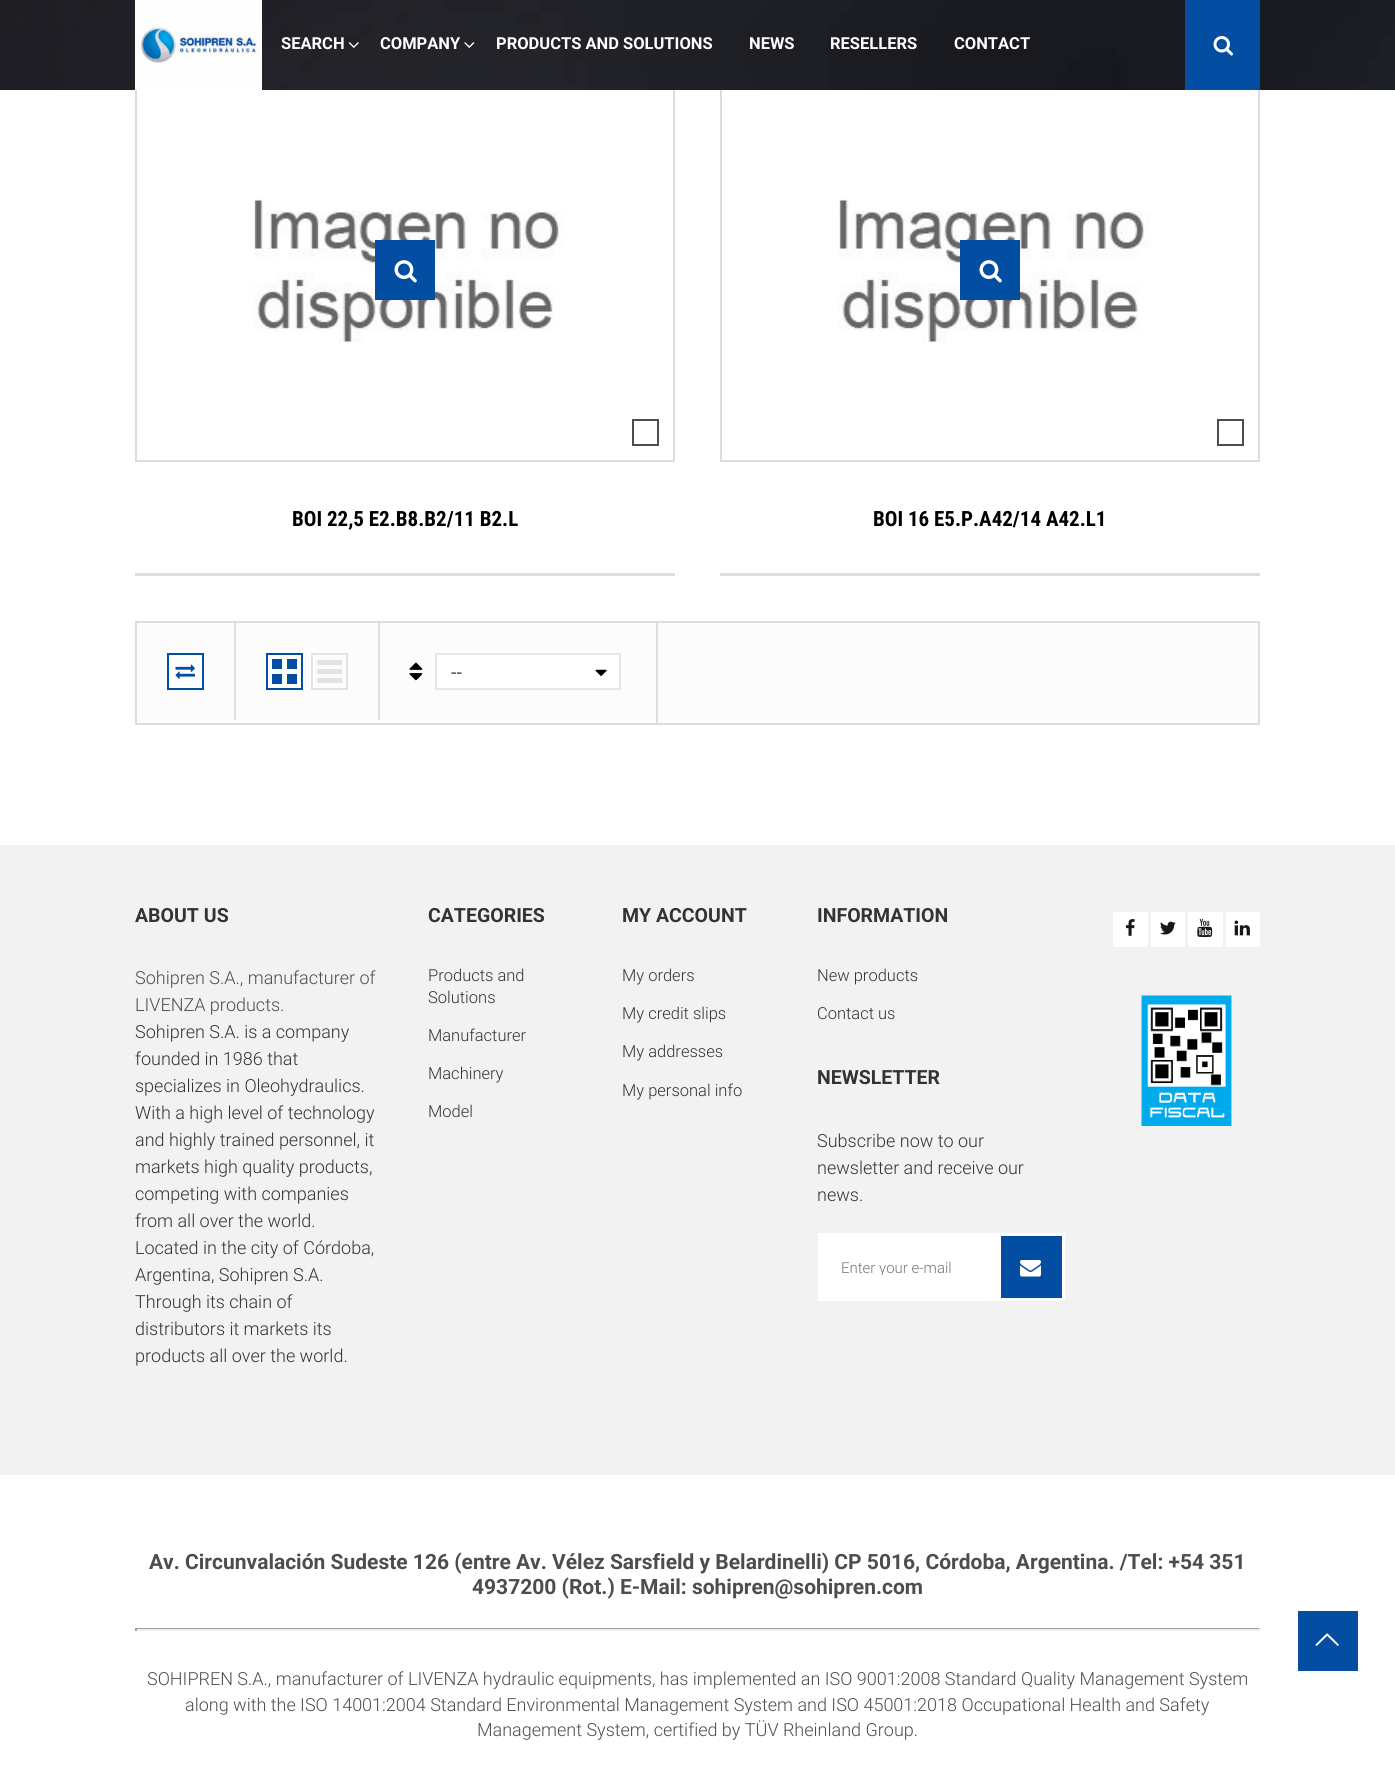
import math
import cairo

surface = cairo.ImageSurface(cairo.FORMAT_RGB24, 1395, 1778)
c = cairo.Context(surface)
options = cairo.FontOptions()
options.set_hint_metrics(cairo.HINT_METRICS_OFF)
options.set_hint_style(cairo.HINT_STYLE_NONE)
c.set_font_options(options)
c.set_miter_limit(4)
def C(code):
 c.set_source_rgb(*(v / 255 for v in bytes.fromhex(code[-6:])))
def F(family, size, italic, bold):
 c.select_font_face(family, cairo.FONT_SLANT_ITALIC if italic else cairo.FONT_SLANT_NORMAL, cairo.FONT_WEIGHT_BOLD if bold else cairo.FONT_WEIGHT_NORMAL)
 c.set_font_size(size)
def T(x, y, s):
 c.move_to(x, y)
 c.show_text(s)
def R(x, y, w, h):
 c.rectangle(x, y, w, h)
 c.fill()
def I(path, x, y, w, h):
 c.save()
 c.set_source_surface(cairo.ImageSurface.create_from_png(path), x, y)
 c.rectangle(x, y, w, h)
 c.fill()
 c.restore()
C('ffffff')
c.paint()
c.rectangle(136,79,538,382)
C('deddd8')
c.stroke()
c.rectangle(721,79,538,382)
c.stroke()
I('1.png',0,0,1395,90)
I('2.png',135,0,127,90)
F('Roboto',16.5,0,1)
C('ffffff')
T(281,49,'SEARCH')
I('3.png',348,42,11,6)
T(380,49,'COMPANY')
I('4.png',464,42,11,6)
T(496,49,'PRODUCTS AND SOLUTIONS')
T(749,49,'NEWS')
T(830,49,'RESELLERS')
T(954,49,'CONTACT')
C('034ea2')
R(1185,0,75,90)
I('5.png',1213,36,20,20)
I('6.png',217,90,376,253)
R(375,240,60,60)
I('7.png',394,260,23,23)
c.rectangle(633,420,25,25)
C('4d4d4d')
c.stroke()
F('Roboto Condensed',21,0,1)
C('000000')
T(292,526,'BOI 22,5 E2.B8.B2/11 B2.L')
C('deddd8')
R(135,573,540,3)
I('6.png',802,90,376,253)
C('034ea2')
R(960,240,60,60)
I('7.png',979,260,23,23)
c.rectangle(1218,420,25,25)
C('4d4d4d')
c.stroke()
C('000000')
T(873,526,'BOI 16 E5.P.A42/14 A42.L1')
C('deddd8')
R(720,573,540,3)
C('fcfcfc')
c.rectangle(136,622,1123,102)
c.fill_preserve()
C('deddd8')
c.stroke()
R(234,623,2,97)
C('ffffff')
c.rectangle(168,654,35,35)
c.fill_preserve()
C('034ea2')
c.stroke()
I('8.png',175,664,20,15)
C('deddd8')
R(378,623,2,97)
c.rectangle(267,654,35,35)
C('034ea2')
c.stroke()
R(272,659,10,10)
R(287,659,10,10)
R(272,674,10,10)
R(287,674,10,10)
c.rectangle(312,654,35,35)
C('e3e3e3')
c.stroke()
R(317,660,25,5)
R(317,669,25,5)
R(317,678,25,5)
C('deddd8')
R(656,623,2,100)
I('9.png',409,662,14,19)
C('ffffff')
c.rectangle(436,654,184,35)
c.fill_preserve()
C('e7e7e7')
c.stroke()
F('Roboto',19.5,0,0)
C('4d4d4d')
T(451,679,'--')
I('10.png',595,669,12,7)
C('f2f2f2')
R(0,845,1395,630)
F('Roboto',19.5,0,1)
C('333333')
T(135,922,'ABOUT US')
F('Roboto Light',18,0,0)
C('4d4d4d')
T(135,984,'Sohipren S.A., manufacturer of')
T(135,1011,'LIVENZA products.')
C('333333')
T(135,1038,'Sohipren S.A. is a company')
T(135,1065,'founded in 1986 that')
T(135,1092,'specializes in Oleohydraulics.')
T(135,1119,'With a high level of technology')
T(135,1146,'and highly trained personnel, it')
T(135,1173,'markets high quality products,')
T(135,1200,'competing with companies')
T(135,1227,'from all over the world.')
T(135,1254,'Located in the city of Córdoba,')
T(135,1281,'Argentina, Sohipren S.A.')
T(135,1308,'Through its chain of')
T(135,1335,'distributors it markets its')
T(135,1362,'products all over the world.')
F('Roboto',19.5,0,1)
T(428,922,'CATEGORIES')
F('Roboto Light',16.5,0,0)
T(428,981,'Products and')
T(428,1003,'Solutions')
T(428,1041,'Manufacturer')
T(428,1079,'Machinery')
T(428,1117,'Model')
F('Roboto',19.5,0,1)
T(622,922,'MY ACCOUNT')
F('Roboto Light',16.5,0,0)
T(622,981,'My orders')
T(622,1019,'My credit slips')
T(622,1057,'My addresses')
T(622,1096,'My personal info')
F('Roboto',19.5,0,1)
T(817,922,'INFORMATION')
F('Roboto Light',16.5,0,0)
T(817,981,'New products')
T(817,1019,'Contact us')
C('ffffff')
R(1113,912,35,35)
I('11.png',1125,919,10,17)
R(1151,912,34,35)
I('12.png',1160,921,16,14)
R(1188,912,35,35)
I('13.png',1197,919,16,19)
R(1226,912,34,35)
I('14.png',1234,920,16,16)
I('15.png',1141,995,91,131)
F('Roboto',19.5,0,1)
C('333333')
T(817,1084,'NEWSLETTER')
F('Roboto Light',18,0,0)
T(817,1147,'Subscribe now to our')
T(817,1174,'newsletter and receive our')
T(817,1201,'news.')
C('ffffff')
R(818,1233,247,68)
c.save()
c.rectangle(842,1259,207,16)
c.clip()
F('Roboto Light',15,0,0)
C('757575')
T(841,1273,'Enter your e-mail')
c.restore()
C('034ea2')
R(1001,1236,61,62)
I('16.png',1020,1260,21,17)
F('Roboto',21,0,1)
C('4d4d4d')
T(149,1569,'Av. Circunvalación Sudeste 126 (entre Av. Vélez Sarsfield y Belardinelli) CP 5016, Córdoba, Argentina. /Tel: +54 351')
T(472,1594,'4937200 (Rot.) E-Mail: sohipren@sohipren.com')
C('9f9f9f')
R(135,1628,1125,1)
C('eeeeee')
R(1259,1628,2,3)
R(135,1629,1125,2)
C('9f9f9f')
R(135,1628,2,3)
F('Roboto Light',18,0,0)
C('4d4d4d')
T(147,1685,'SOHIPREN S.A., manufacturer of LIVENZA hydraulic equipments, has implemented an ISO 9001:2008 Standard Quality Management System')
T(185,1711,'along with the ISO 14001:2004 Standard Environmental Management System and ISO 45001:2018 Occupational Health and Safety')
T(477,1736,'Management System, certified by TÜV Rheinland Group.')
C('034ea2')
R(1298,1611,60,60)
I('17.png',1315,1633,24,13)
surface.write_to_png('o.png')
